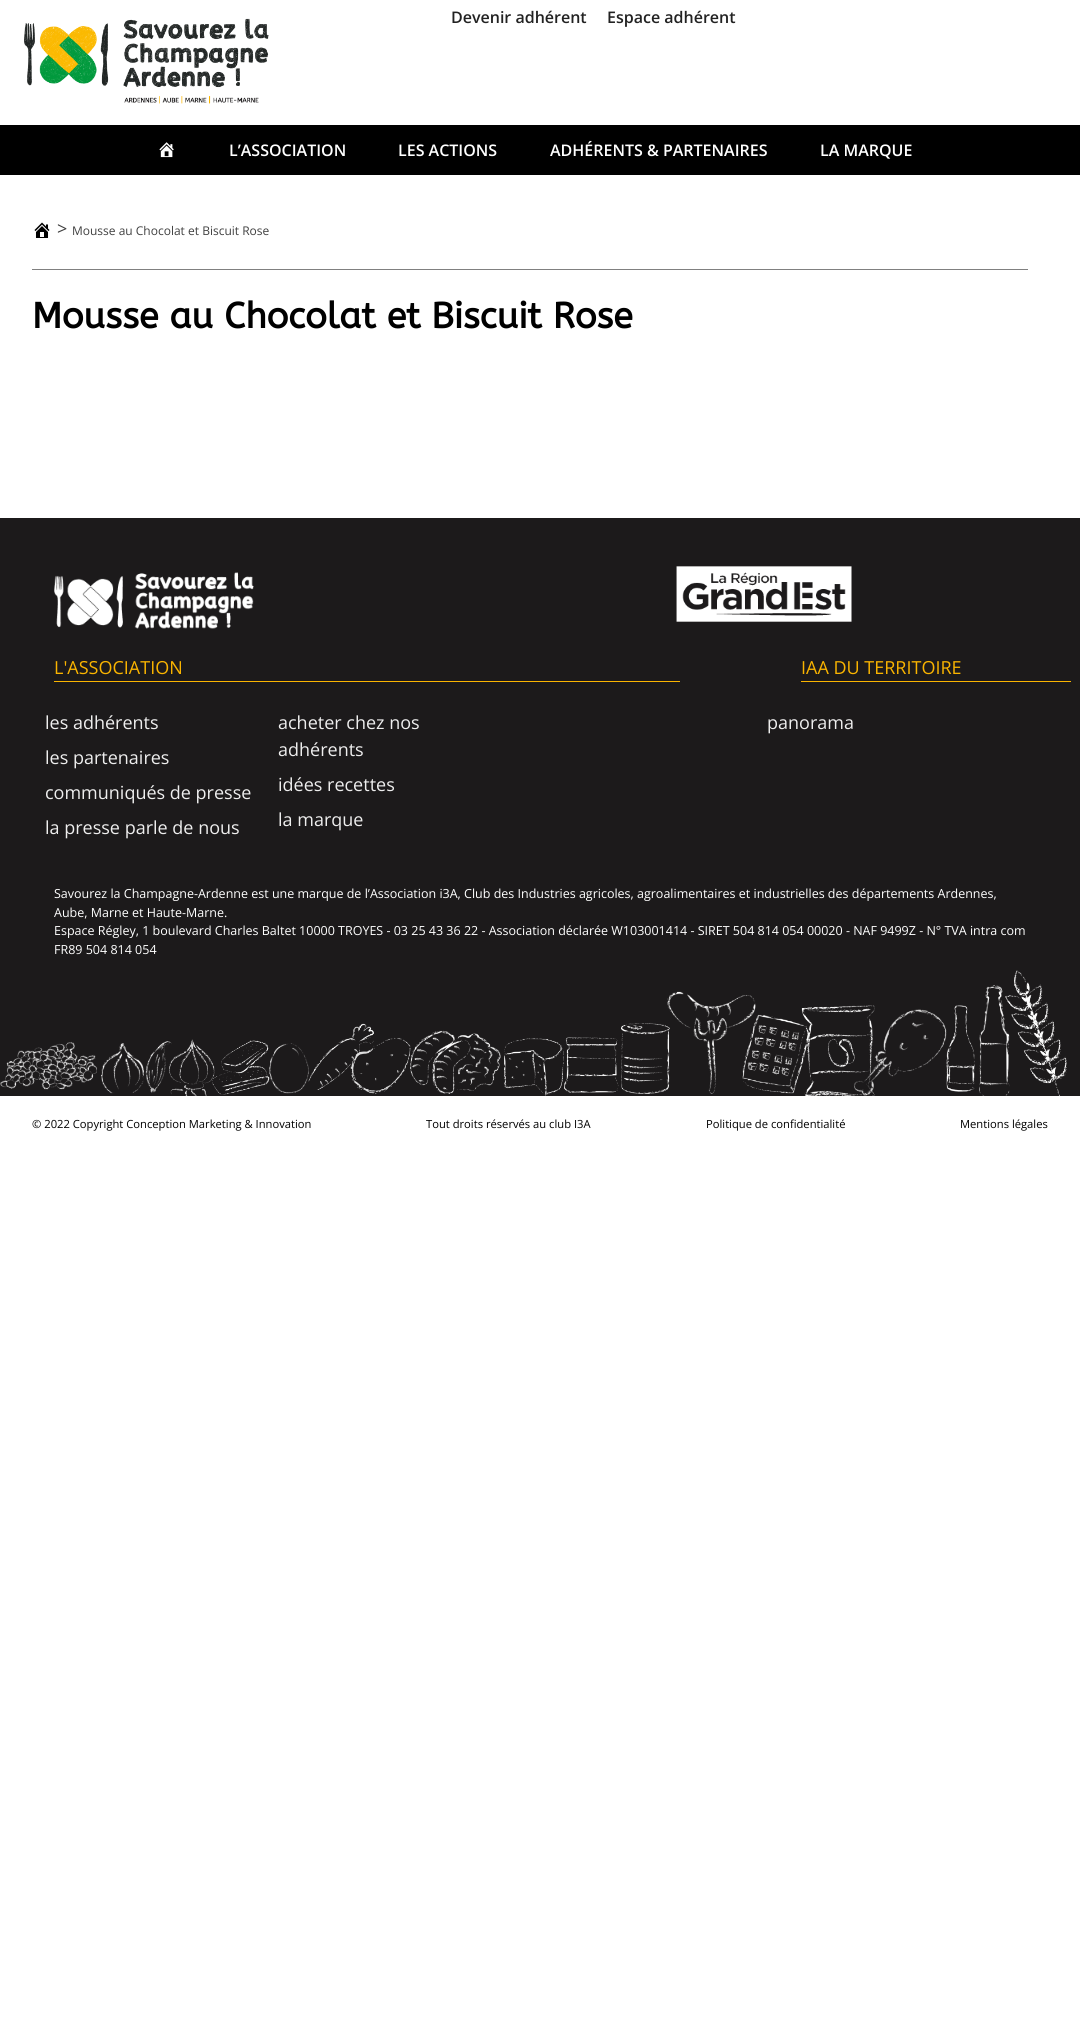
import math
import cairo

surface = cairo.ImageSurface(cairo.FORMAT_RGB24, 1080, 2042)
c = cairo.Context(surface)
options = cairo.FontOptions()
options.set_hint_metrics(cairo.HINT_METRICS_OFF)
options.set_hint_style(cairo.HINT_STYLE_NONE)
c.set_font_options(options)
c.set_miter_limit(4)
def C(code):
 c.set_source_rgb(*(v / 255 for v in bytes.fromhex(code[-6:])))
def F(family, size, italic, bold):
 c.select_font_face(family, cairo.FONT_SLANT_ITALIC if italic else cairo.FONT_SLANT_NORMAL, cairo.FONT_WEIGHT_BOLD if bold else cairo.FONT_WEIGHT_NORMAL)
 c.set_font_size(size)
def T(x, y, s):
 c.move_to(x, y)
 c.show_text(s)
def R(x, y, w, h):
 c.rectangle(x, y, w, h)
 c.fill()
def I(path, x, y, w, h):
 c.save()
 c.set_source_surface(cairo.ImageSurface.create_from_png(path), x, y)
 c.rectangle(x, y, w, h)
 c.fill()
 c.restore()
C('ffffff')
c.paint()
F('Open Sans SemiBold',16,0,0)
C('222222')
T(451,23,'Devenir adhérent')
T(607,23,'Espace adhérent')
I('1.png',24,18,245,86)
C('000000')
R(0,125,1080,50)
I('2.png',159,142,15,16)
C('ffffff')
T(229,156,'L’ASSOCIATION')
T(398,156,'LES ACTIONS')
T(550,156,'ADHÉRENTS & PARTENAIRES')
T(820,156,'LA MARQUE')
I('3.png',34,222,16,16)
F('Open Sans',18,0,0)
C('404040')
T(57,235,'>')
F('Open Sans',12,0,0)
T(72,235,'Mousse au Chocolat et Biscuit Rose')
C('808080')
R(32,269,996,1)
F('ABeeZee',36,0,1)
C('000000')
T(32,328,'Mousse au Chocolat et Biscuit Rose')
C('1c1a1b')
R(0,518,1080,578)
I('4.png',54,572,200,57)
I('5.png',676,566,176,56)
C('fab400')
R(54,681,626,1)
F('Open Sans',18,0,0)
T(54,674,'L\'ASSOCIATION')
R(801,681,270,1)
T(801,674,'IAA DU TERRITOIRE')
C('eeeeee')
T(45,729,'les adhérents')
T(45,764,'les partenaires')
T(45,799,'communiqués de presse')
T(45,834,'la presse parle de nous')
T(278,729,'acheter chez nos')
T(278,756,'adhérents')
T(278,791,'idées recettes')
T(278,826,'la marque')
T(767,729,'panorama')
F('Open Sans',12.5,0,0)
C('ffffff')
T(54,898,'Savourez la Champagne-Ardenne est une marque de l’Association i3A, Club des Industries agricoles, agroalimentaires et industrielles des départements Ardennes,')
T(54,917,'Aube, Marne et Haute-Marne.')
T(54,935,'Espace Régley, 1 boulevard Charles Baltet 10000 TROYES - 03 25 43 36 22 - Association déclarée W103001414 - SIRET 504 814 054 00020 - NAF 9499Z - N° TVA intra com')
T(54,954,'FR89 504 814 054')
I('6.png',0,970,1067,126)
F('Open Sans',11.2,0,0)
C('000000')
T(32,1128,'© 2022 Copyright Conception Marketing & Innovation')
T(426,1128,'Tout droits réservés au club I3A')
T(706,1128,'Politique de confidentialité')
T(960,1128,'Mentions légales')
surface.write_to_png('o.png')
